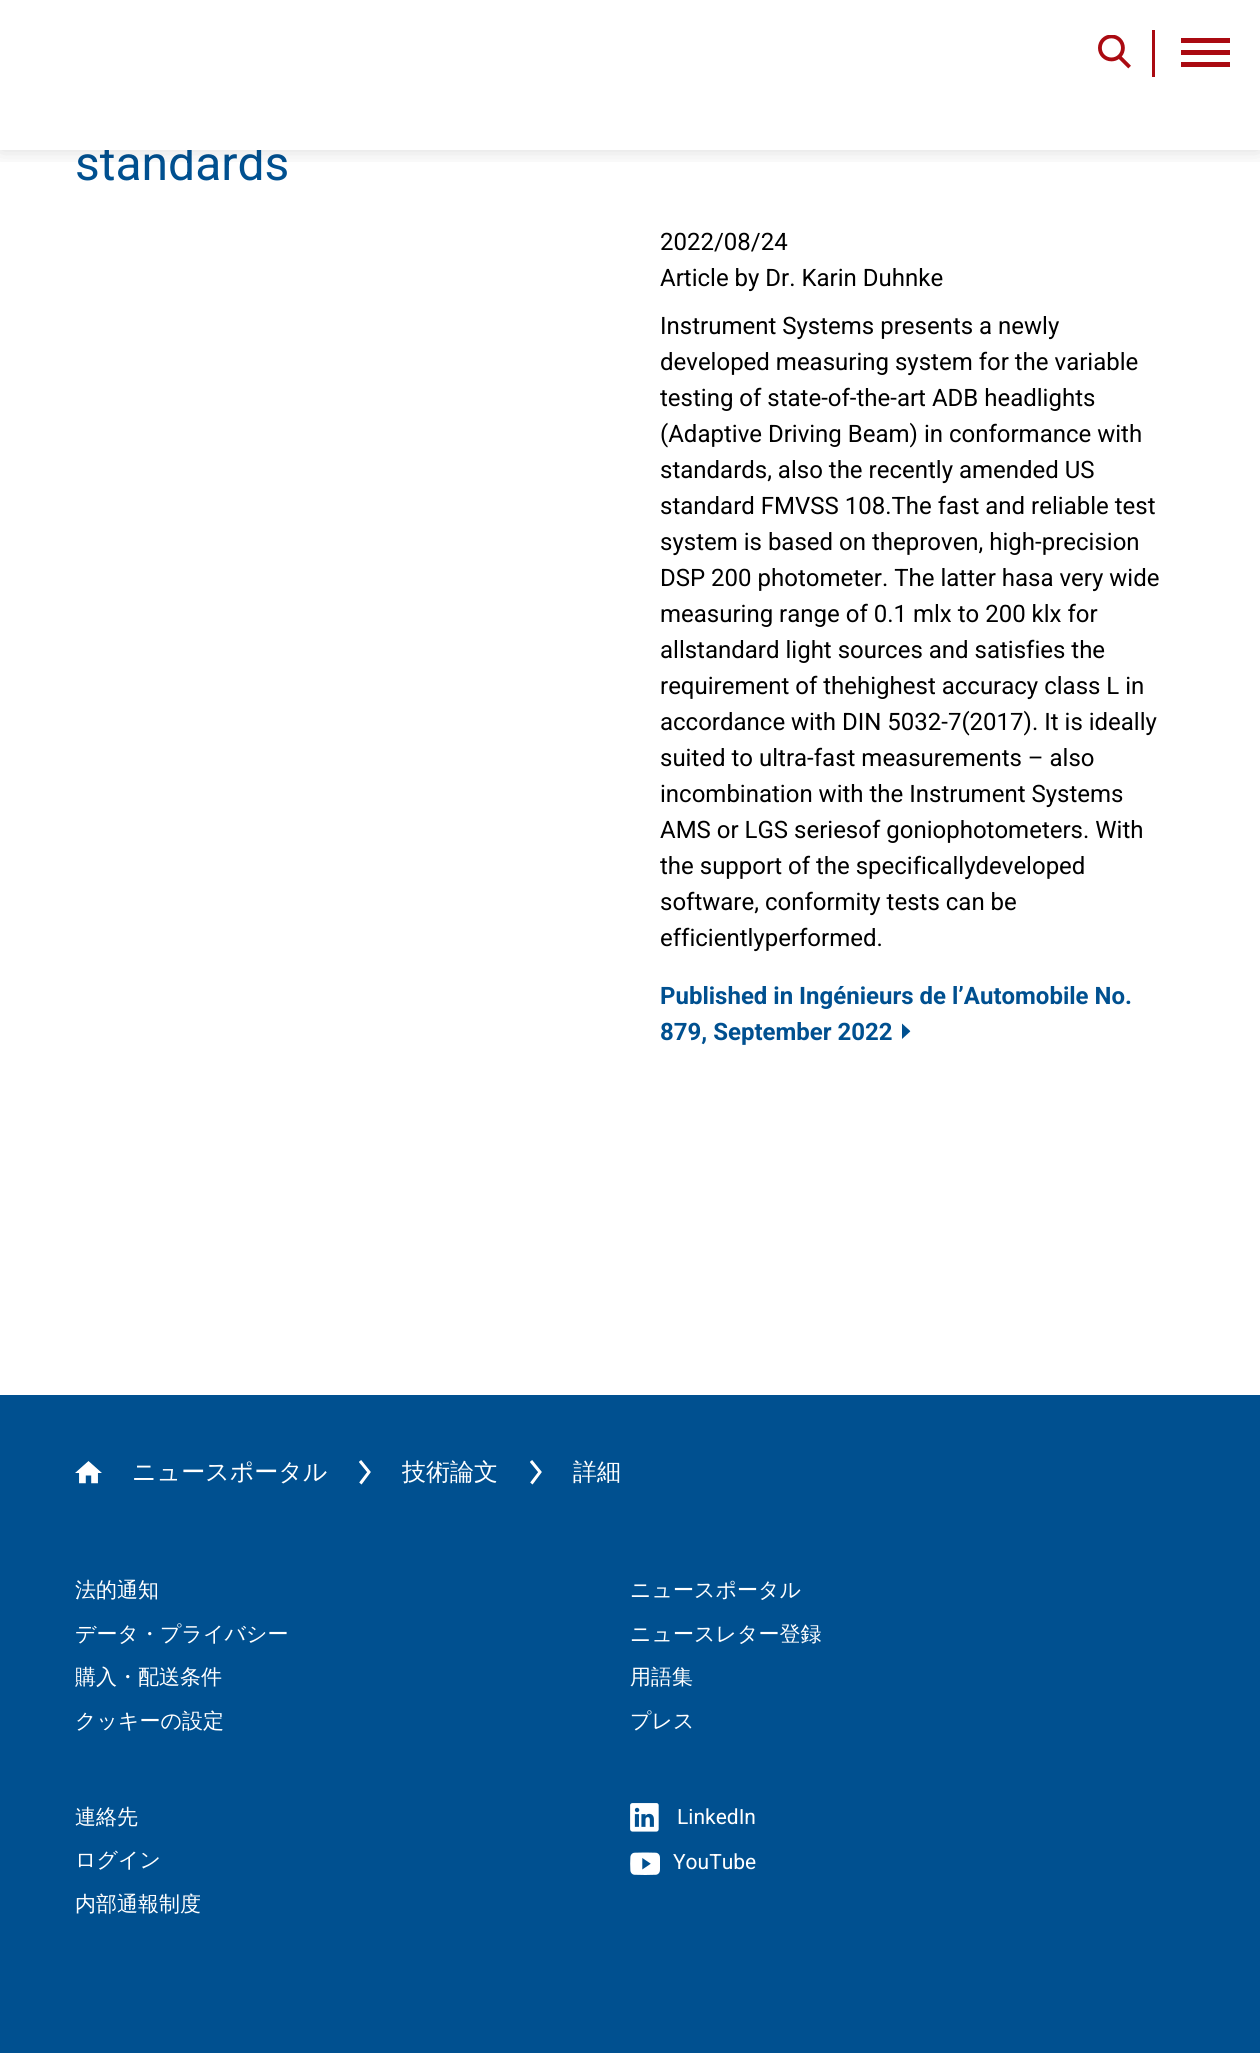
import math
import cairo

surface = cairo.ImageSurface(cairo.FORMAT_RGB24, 1260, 2053)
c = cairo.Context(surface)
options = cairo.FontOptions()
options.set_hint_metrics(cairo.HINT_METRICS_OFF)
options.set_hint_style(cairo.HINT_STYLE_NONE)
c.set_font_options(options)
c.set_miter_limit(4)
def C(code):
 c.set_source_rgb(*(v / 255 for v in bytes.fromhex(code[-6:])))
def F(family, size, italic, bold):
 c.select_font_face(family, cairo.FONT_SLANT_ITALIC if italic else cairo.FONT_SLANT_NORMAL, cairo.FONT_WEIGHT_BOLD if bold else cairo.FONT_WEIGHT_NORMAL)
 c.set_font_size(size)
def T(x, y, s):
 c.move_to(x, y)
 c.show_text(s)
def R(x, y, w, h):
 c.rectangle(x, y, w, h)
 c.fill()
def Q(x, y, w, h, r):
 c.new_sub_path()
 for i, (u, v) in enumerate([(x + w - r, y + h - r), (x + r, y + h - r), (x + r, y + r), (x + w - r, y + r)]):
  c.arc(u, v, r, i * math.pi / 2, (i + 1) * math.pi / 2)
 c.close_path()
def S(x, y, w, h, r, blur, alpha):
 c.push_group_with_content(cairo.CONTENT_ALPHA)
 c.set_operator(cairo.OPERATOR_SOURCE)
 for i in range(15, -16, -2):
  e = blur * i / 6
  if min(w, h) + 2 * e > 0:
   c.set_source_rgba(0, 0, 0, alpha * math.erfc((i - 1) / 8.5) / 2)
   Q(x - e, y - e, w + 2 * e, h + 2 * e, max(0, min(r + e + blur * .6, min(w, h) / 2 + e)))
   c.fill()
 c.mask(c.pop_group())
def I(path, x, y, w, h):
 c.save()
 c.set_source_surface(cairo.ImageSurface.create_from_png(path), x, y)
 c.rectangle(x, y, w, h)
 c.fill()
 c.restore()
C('ffffff')
c.paint()
F('Roboto',48,0,0)
C('005090')
T(75,180,'standards')
C('ffffff')
R(104,144,158,6)
c.save()
c.rectangle(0,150,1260,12)
c.clip()
C('000000')
S(0,0,1260,150,0,11,.15)
c.restore()
I('1.png',1098,35,33,34)
C('aa0a11')
R(1152,30,3,47)
R(1181,38,49,5)
R(1181,50,49,5)
R(1181,62,49,5)
F('Roboto',24,0,0)
C('000000')
T(660,250,'2022/08/24')
T(660,286,'Article by Dr. Karin Duhnke')
T(660,334,'Instrument Systems presents a newly')
T(660,370,'developed measuring system for the variable')
T(660,406,'testing of state-of-the-art ADB headlights')
T(660,442,'(Adaptive Driving Beam) in conformance with')
T(660,478,'standards, also the recently amended US')
T(660,514,'standard FMVSS 108.The fast and reliable test')
T(660,550,'system is based on theproven, high-precision')
T(660,586,'DSP 200 photometer. The latter hasa very wide')
T(660,622,'measuring range of 0.1 mlx to 200 klx for')
T(660,658,'allstandard light sources and satisfies the')
T(660,694,'requirement of thehighest accuracy class L in')
T(660,730,'accordance with DIN 5032-7(2017). It is ideally')
T(660,766,'suited to ultra-fast measurements – also')
T(660,802,'incombination with the Instrument Systems')
T(660,838,'AMS or LGS seriesof goniophotometers. With')
T(660,874,'the support of the specificallydeveloped')
T(660,910,'software, conformity tests can be')
T(660,946,'efficientlyperformed.')
F('Roboto',24,0,1)
C('005090')
T(660,1004,'Published in Ingénieurs de l’Automobile No.')
T(660,1040,'879, September 2022')
I('2.png',902,1023,9,16)
R(0,1395,1260,658)
I('3.png',75,1461,27,23)
F('WenQuanYi Zen Hei Medium',24,0,0)
C('ffffff')
T(132,1480,'ニュースポータル')
I('4.png',359,1460,12,25)
T(402,1480,'技術論文')
I('4.png',530,1460,12,25)
T(573,1480,'詳細')
F('WenQuanYi Zen Hei Medium',21,0,0)
T(75,1597,'法的通知')
T(75,1641,'データ・プライバシー')
T(75,1684,'購入・配送条件')
T(75,1728,'クッキーの設定')
T(630,1597,'ニュースポータル')
T(630,1641,'ニュースレター登録')
T(630,1684,'用語集')
T(630,1728,'プレス')
T(75,1824,'連絡先')
T(75,1867,'ログイン')
T(75,1911,'内部通報制度')
I('5.png',630,1803,29,29)
F('Roboto',21,0,0)
T(677,1824,'LinkedIn')
I('6.png',630,1852,30,23)
T(673,1869,'YouTube')
surface.write_to_png('o.png')
